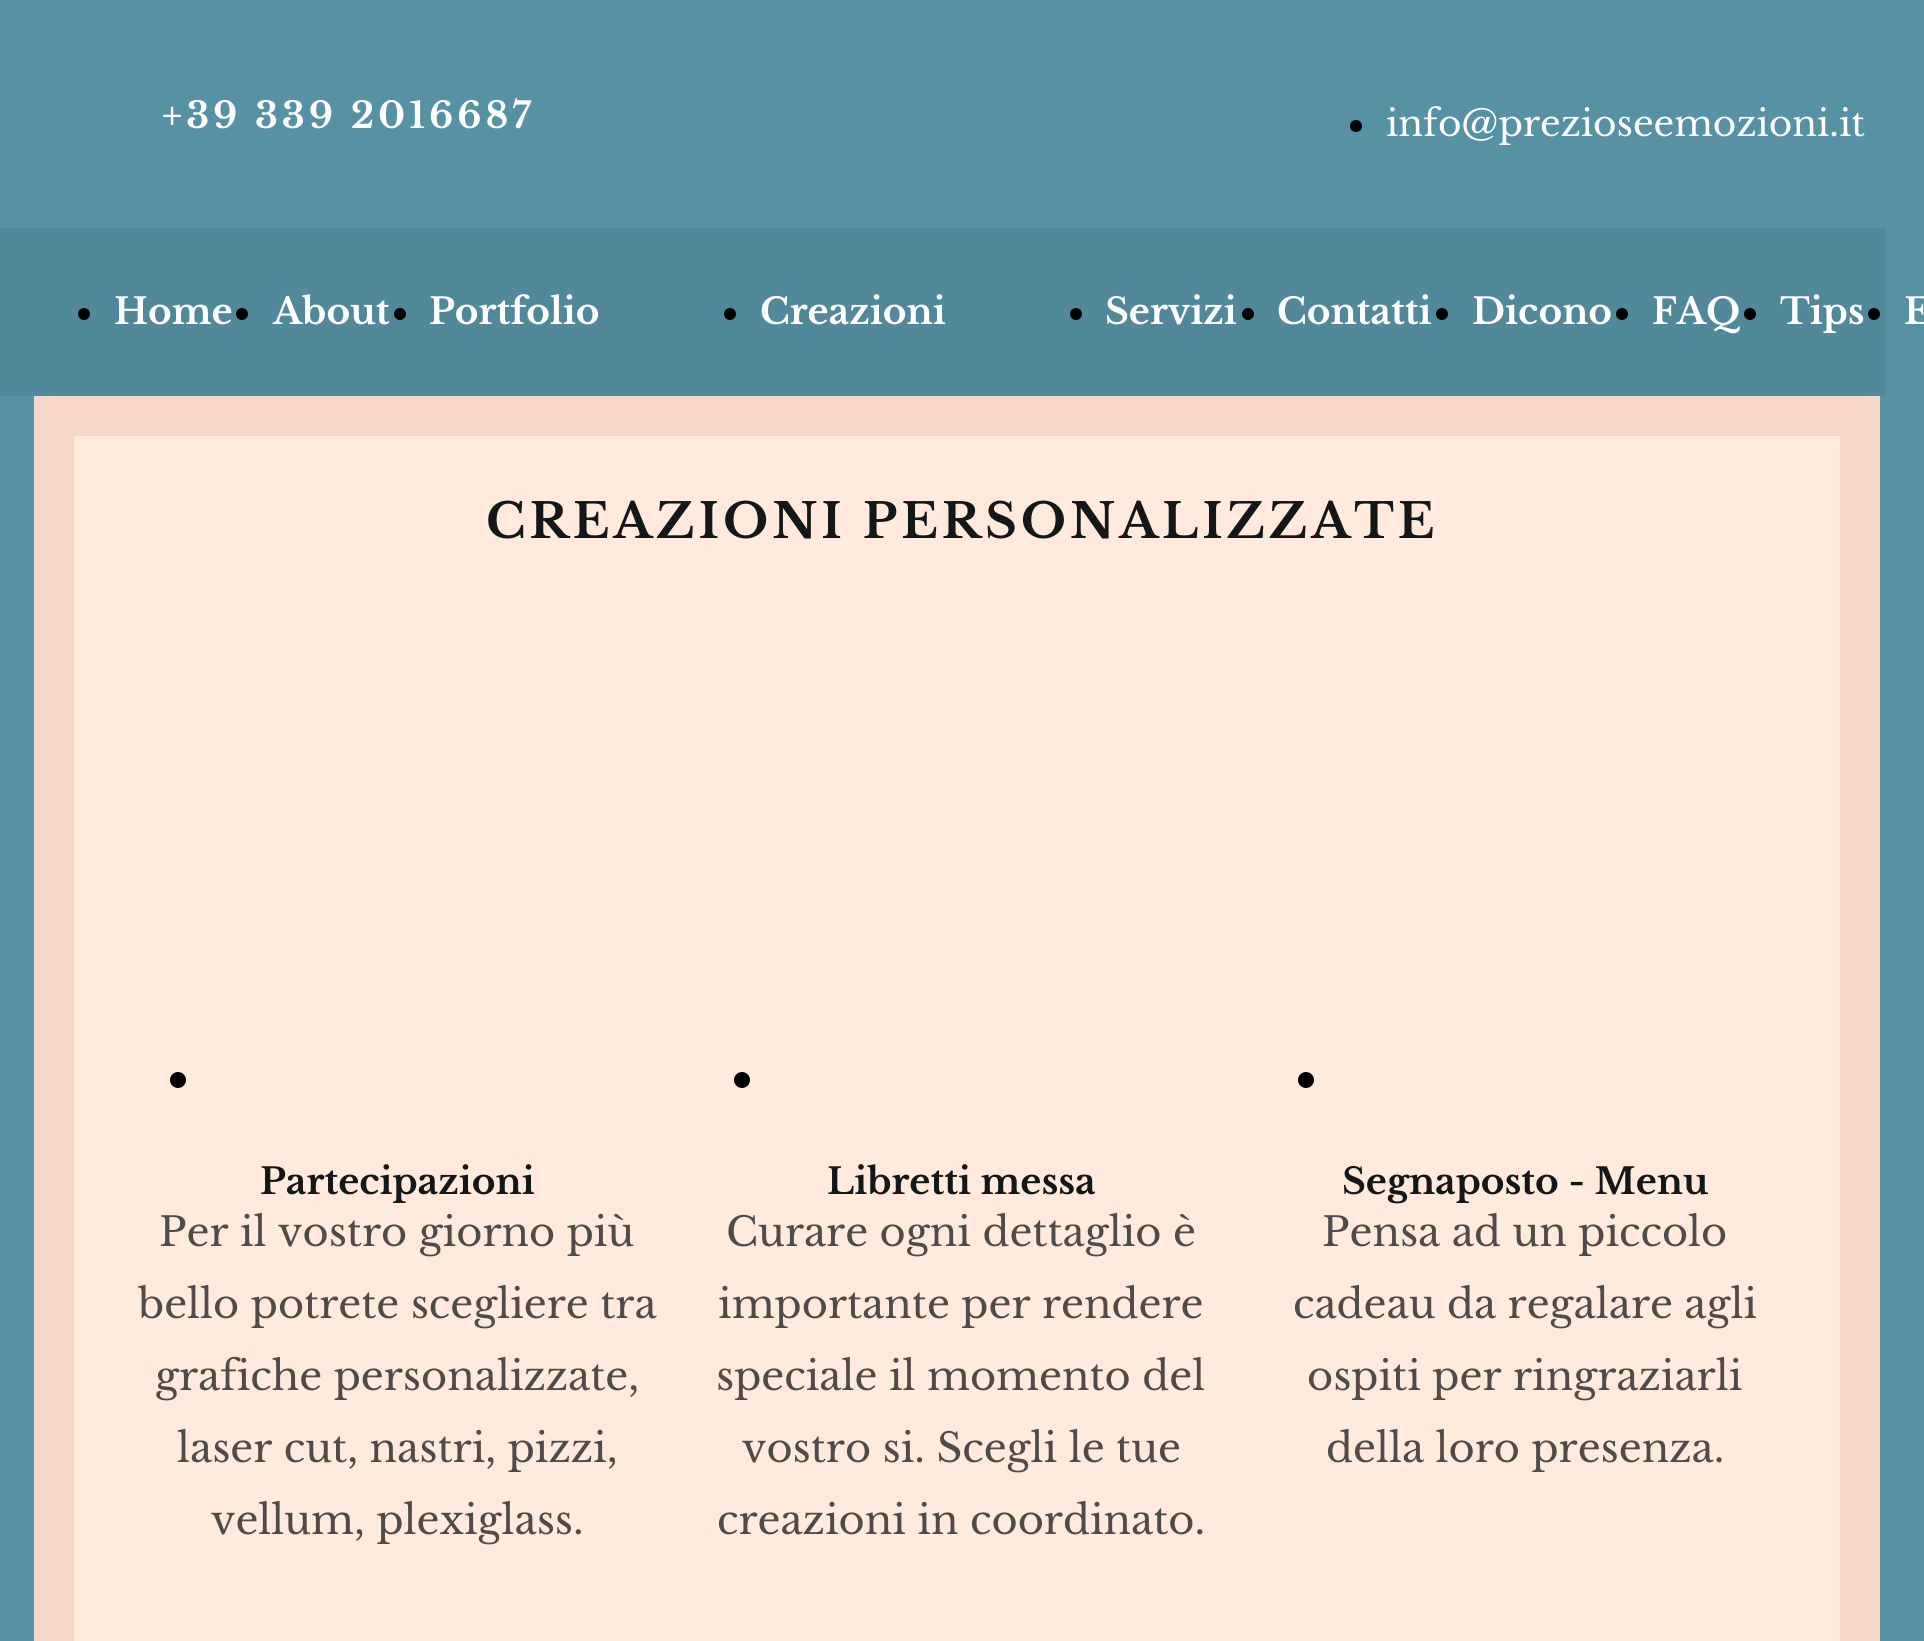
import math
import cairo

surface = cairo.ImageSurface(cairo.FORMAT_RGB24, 1924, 1641)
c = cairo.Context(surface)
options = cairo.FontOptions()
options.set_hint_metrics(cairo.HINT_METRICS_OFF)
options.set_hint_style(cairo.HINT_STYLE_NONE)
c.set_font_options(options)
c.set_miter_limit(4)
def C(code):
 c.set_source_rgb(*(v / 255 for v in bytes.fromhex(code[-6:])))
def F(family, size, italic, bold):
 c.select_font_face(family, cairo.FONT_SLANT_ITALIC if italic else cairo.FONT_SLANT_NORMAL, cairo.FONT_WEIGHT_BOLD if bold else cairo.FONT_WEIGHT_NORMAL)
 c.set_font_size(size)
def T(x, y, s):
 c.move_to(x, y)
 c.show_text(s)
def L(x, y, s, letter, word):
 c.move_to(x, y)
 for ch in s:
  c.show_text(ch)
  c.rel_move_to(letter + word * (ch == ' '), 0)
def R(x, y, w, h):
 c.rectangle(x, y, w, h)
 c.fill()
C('5691a4')
c.paint()
F('Libre Baskerville',36,0,1)
C('ffffff')
L(162,128,'+39 339 2016687',4,0)
C('000000')
c.new_path()
c.arc(1356,126,6,0,2 * math.pi)
c.fill()
F('Libre Baskerville',36,0,0)
C('ffffff')
T(1386,136,'info@prezioseemozioni.it')
C('51889a')
R(0,228,1886,168)
C('000000')
c.new_path()
c.arc(84,314,6,0,2 * math.pi)
c.fill()
F('Libre Baskerville',36,0,1)
C('ffffff')
T(114,324,'Home')
C('000000')
c.new_path()
c.arc(242,314,6,0,2 * math.pi)
c.fill()
C('ffffff')
T(273,324,'About')
C('000000')
c.new_path()
c.arc(400,314,6,0,2 * math.pi)
c.fill()
C('ffffff')
T(429,324,'Portfolio')
C('000000')
c.new_path()
c.arc(730,314,6,0,2 * math.pi)
c.fill()
C('ffffff')
T(760,324,'Creazioni')
C('000000')
c.new_path()
c.arc(1076,314,6,0,2 * math.pi)
c.fill()
C('ffffff')
T(1105,324,'Servizi')
C('000000')
c.new_path()
c.arc(1248,314,6,0,2 * math.pi)
c.fill()
C('ffffff')
T(1277,324,'Contatti')
C('000000')
c.new_path()
c.arc(1442,314,6,0,2 * math.pi)
c.fill()
C('ffffff')
T(1472,324,'Dicono')
C('000000')
c.new_path()
c.arc(1622,314,6,0,2 * math.pi)
c.fill()
C('ffffff')
T(1652,324,'FAQ')
C('000000')
c.new_path()
c.arc(1750,314,6,0,2 * math.pi)
c.fill()
C('ffffff')
T(1780,324,'Tips')
C('000000')
c.new_path()
c.arc(1874,314,6,0,2 * math.pi)
c.fill()
C('ffffff')
T(1904,324,'E')
C('f7d6ca')
R(34,396,1846,1245)
C('ffeadd')
R(74,436,1766,1205)
F('Libre Baskerville',48,0,1)
C('151616')
L(486,538,'CREAZIONI PERSONALIZZATE',4,0)
C('000000')
c.new_path()
c.arc(178,1080,8,0,2 * math.pi)
c.fill()
c.arc(742,1080,8,0,2 * math.pi)
c.fill()
c.arc(1306,1080,8,0,2 * math.pi)
c.fill()
F('Libre Baskerville',36,0,1)
C('151616')
T(260,1194,'Partecipazioni')
T(827,1194,'Libretti messa')
T(1342,1194,'Segnaposto - Menu')
F('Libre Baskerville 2',40,0,0)
C('504b48')
T(159,1246,'Per il vostro giorno più')
T(138,1318,'bello potrete scegliere tra')
T(155,1390,'grafiche personalizzate,')
T(177,1462,'laser cut, nastri, pizzi,')
T(211,1534,'vellum, plexiglass.')
T(726,1246,'Curare ogni dettaglio è')
T(718,1318,'importante per rendere')
T(716,1390,'speciale il momento del')
T(742,1462,'vostro si. Scegli le tue')
T(717,1534,'creazioni in coordinato.')
T(1322,1246,'Pensa ad un piccolo')
T(1293,1318,'cadeau da regalare agli')
T(1307,1390,'ospiti per ringraziarli')
T(1326,1462,'della loro presenza.')
surface.write_to_png('o.png')
